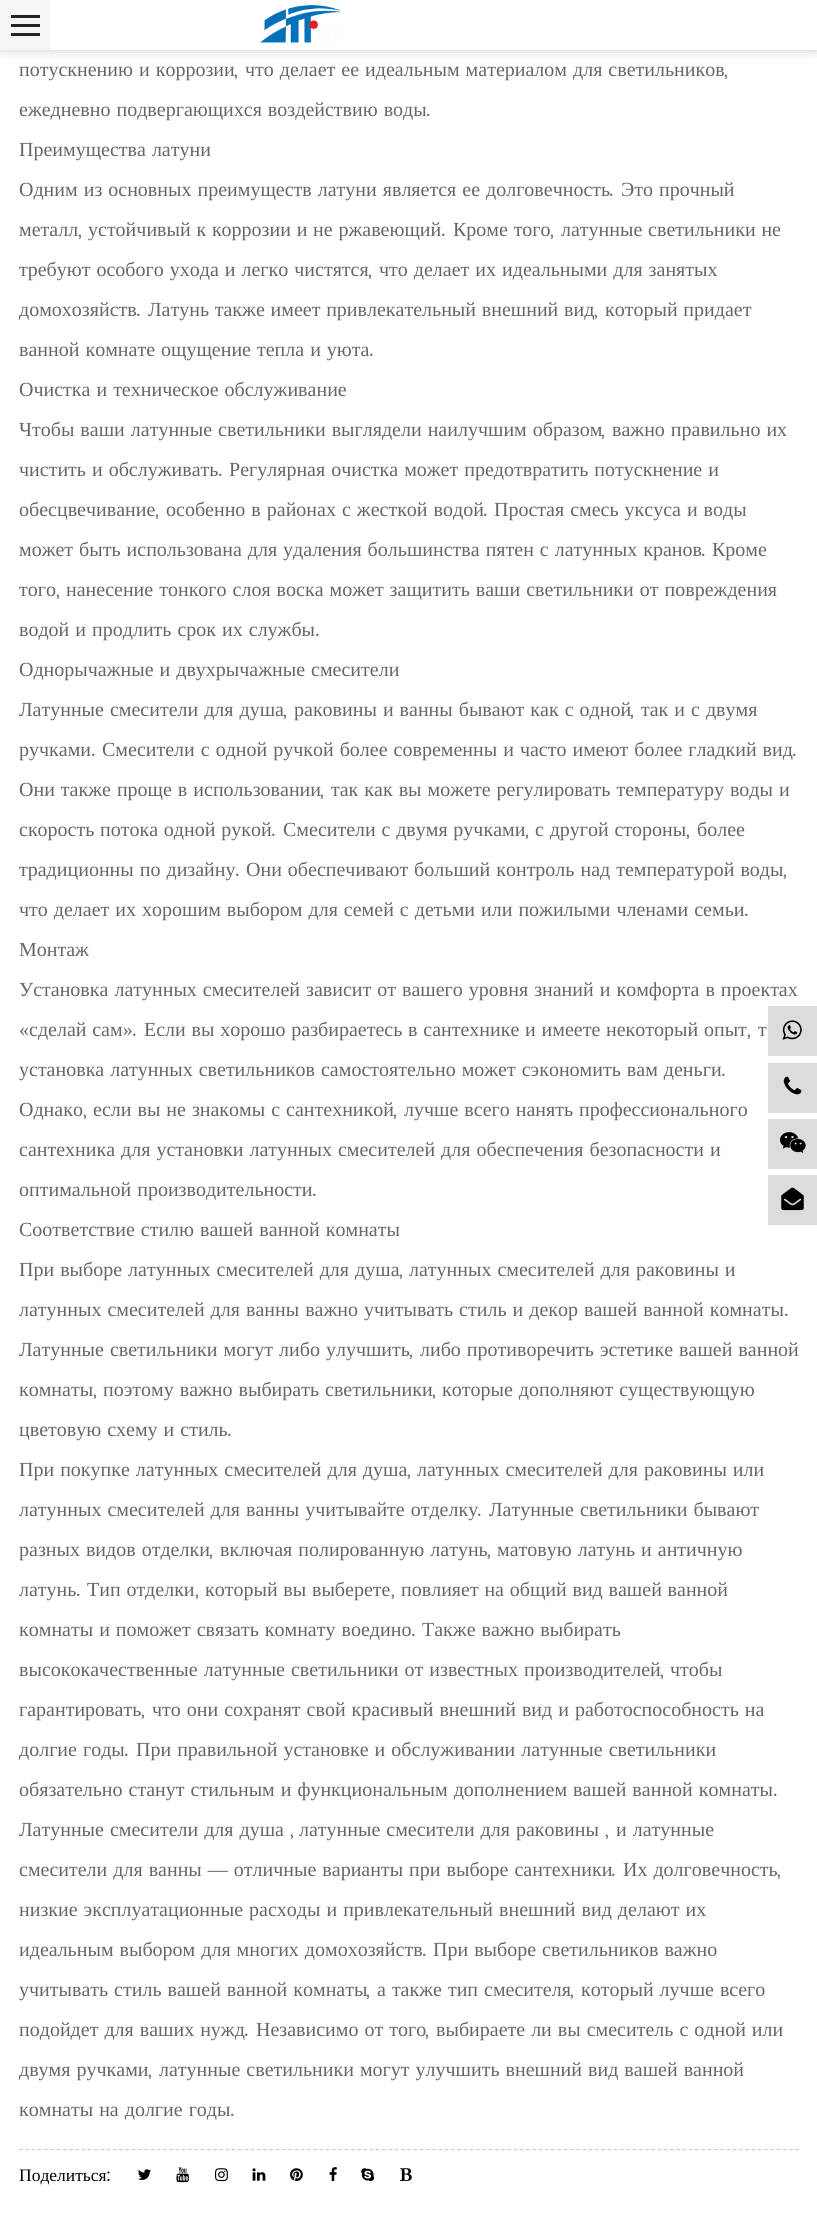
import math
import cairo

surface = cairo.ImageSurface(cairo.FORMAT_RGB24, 817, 2228)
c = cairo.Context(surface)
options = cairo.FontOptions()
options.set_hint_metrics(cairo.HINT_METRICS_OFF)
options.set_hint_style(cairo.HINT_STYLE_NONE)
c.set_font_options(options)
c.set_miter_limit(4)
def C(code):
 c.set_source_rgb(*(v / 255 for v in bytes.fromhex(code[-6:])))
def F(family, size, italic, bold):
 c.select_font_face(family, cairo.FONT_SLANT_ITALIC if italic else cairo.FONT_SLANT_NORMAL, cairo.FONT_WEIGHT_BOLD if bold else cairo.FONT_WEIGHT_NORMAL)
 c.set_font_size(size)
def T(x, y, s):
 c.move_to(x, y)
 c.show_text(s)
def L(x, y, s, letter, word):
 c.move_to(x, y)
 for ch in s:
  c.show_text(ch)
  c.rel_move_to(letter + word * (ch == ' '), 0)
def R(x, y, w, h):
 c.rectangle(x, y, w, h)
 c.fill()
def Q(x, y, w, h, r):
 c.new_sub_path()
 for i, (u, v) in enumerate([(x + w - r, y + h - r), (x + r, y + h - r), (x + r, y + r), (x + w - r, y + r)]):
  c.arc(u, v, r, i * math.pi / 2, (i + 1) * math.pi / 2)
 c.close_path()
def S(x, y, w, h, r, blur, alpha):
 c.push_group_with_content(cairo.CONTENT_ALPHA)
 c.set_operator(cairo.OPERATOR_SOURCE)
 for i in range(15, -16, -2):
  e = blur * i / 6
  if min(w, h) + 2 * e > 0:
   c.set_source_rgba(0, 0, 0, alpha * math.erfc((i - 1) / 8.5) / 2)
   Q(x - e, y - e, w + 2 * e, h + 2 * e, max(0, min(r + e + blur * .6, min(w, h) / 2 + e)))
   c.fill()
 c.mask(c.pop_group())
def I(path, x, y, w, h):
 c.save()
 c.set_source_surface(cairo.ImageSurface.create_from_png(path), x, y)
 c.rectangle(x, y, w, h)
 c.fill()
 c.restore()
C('ffffff')
c.paint()
C('000000')
S(0,0,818,50,0,6,.2)
C('ffffff')
R(50,0,767,50)
I('1.png',260,5,82,38)
C('f5f5f5')
R(0,0,50,50)
C('222222')
R(11,15,29,3)
R(11,24,29,3)
R(11,33,29,3)
c.new_path()
c.move_to(19,2149.5)
c.line_to(799,2149.5)
C('cccccc')
c.set_line_width(1.2)
c.set_dash([3.75,2.51])
c.stroke()
F('Liberation Serif',20,0,0)
C('666666')
L(19,76,'потускнению и коррозии',0,1)
F('Poppins',20,0,0)
T(234,76,',')
F('Liberation Serif',20,0,0)
L(245,76,'что делает ее идеальным материалом для светильников',0,1)
F('Poppins',20,0,0)
T(724,76,',')
F('Liberation Serif',20,0,0)
L(19,116,'ежедневно подвергающихся воздействию воды',0,1)
F('Poppins',20,0,0)
T(426,116,'.')
F('Liberation Serif',20,0,0)
L(19,156,'Преимущества латуни',0,1)
L(19,196,'Одним из основных преимуществ латуни является ее долговечность',0,1)
F('Poppins',20,0,0)
T(609,196,'.')
F('Liberation Serif',20,0,0)
L(621,196,'Это прочный',0,1)
T(19,236,'металл')
F('Poppins',20,0,0)
T(78,236,',')
F('Liberation Serif',20,0,0)
L(88,236,'устойчивый к коррозии и не ржавеющий',0,.75)
F('Poppins',20,0,0)
T(441,236,'.')
F('Liberation Serif',20,0,0)
L(453,236,'Кроме того',0,.75)
F('Poppins',20,0,0)
T(550,236,',')
F('Liberation Serif',20,0,0)
L(561,236,'латунные светильники не',0,.75)
L(19,276,'требуют особого ухода и легко чистятся',0,1)
F('Poppins',20,0,0)
T(368,276,',')
F('Liberation Serif',20,0,0)
L(379,276,'что делает их идеальными для занятых',0,1)
T(19,316,'домохозяйств')
F('Poppins',20,0,0)
T(136,316,'.')
F('Liberation Serif',20,0,0)
L(148,316,'Латунь также имеет привлекательный внешний вид',0,.75)
F('Poppins',20,0,0)
T(594,316,',')
F('Liberation Serif',20,0,0)
L(605,316,'который придает',0,.75)
L(19,356,'ванной комнате ощущение тепла и уюта',0,1)
F('Poppins',20,0,0)
T(369,356,'.')
F('Liberation Serif',20,0,0)
L(19,396,'Очистка и техническое обслуживание',0,1)
L(19,436,'Чтобы ваши латунные светильники выглядели наилучшим образом',0,1)
F('Poppins',20,0,0)
T(601,436,',')
F('Liberation Serif',20,0,0)
L(612,436,'важно правильно их',0,1)
L(19,476,'чистить и обслуживать',0,1)
F('Poppins',20,0,0)
T(218,476,'.')
F('Liberation Serif',20,0,0)
L(229,476,'Регулярная очистка может предотвратить потускнение и',0,1)
T(19,516,'обесцвечивание')
F('Poppins',20,0,0)
T(155,516,',')
F('Liberation Serif',20,0,0)
L(166,516,'особенно в районах с жесткой водой',0,1)
F('Poppins',20,0,0)
T(483,516,'.')
F('Liberation Serif',20,0,0)
L(494,516,'Простая смесь уксуса и воды',0,1)
L(19,556,'может быть использована для удаления большинства пятен с латунных кранов',0,1)
F('Poppins',20,0,0)
T(701,556,'.')
F('Liberation Serif',20,0,0)
T(712,556,'Кроме')
T(19,596,'того')
F('Poppins',20,0,0)
T(56,596,',')
F('Liberation Serif',20,0,0)
L(66,596,'нанесение тонкого слоя воска может защитить ваши светильники от повреждения',0,1)
L(19,636,'водой и продлить срок их службы',0,1)
F('Poppins',20,0,0)
T(315,636,'.')
F('Liberation Serif',20,0,0)
L(19,676,'Однорычажные и двухрычажные смесители',0,1)
L(19,716,'Латунные смесители для душа',0,1)
F('Poppins',20,0,0)
T(283,716,',')
F('Liberation Serif',20,0,0)
L(294,716,'раковины и ванны бывают как с одной',0,1)
F('Poppins',20,0,0)
T(630,716,',')
F('Liberation Serif',20,0,0)
L(641,716,'так и с двумя',0,1)
T(19,756,'ручками')
F('Poppins',20,0,0)
T(91,756,'.')
F('Liberation Serif',20,0,0)
L(102,756,'Смесители с одной ручкой более современны и часто имеют более гладкий вид',0,1)
F('Poppins',20,0,0)
T(792,756,'.')
F('Liberation Serif',20,0,0)
L(19,796,'Они также проще в использовании',0,1)
F('Poppins',20,0,0)
T(320,796,',')
F('Liberation Serif',20,0,0)
L(331,796,'так как вы можете регулировать температуру воды и',0,1)
L(19,836,'скорость потока одной рукой',0,.75)
F('Poppins',20,0,0)
T(271,836,'.')
F('Liberation Serif',20,0,0)
L(283,836,'Смесители с двумя ручками',0,.75)
F('Poppins',20,0,0)
T(525,836,',')
F('Liberation Serif',20,0,0)
L(535,836,'с другой стороны',0,.75)
F('Poppins',20,0,0)
T(686,836,',')
F('Liberation Serif',20,0,0)
T(697,836,'более')
L(19,876,'традиционны по дизайну',0,1)
F('Poppins',20,0,0)
T(235,876,'.')
F('Liberation Serif',20,0,0)
L(246,876,'Они обеспечивают больший контроль над температурой воды',0,1)
F('Poppins',20,0,0)
T(783,876,',')
F('Liberation Serif',20,0,0)
L(19,916,'что делает их хорошим выбором для семей с детьми или пожилыми членами семьи',0,1)
F('Poppins',20,0,0)
T(744,916,'.')
F('Liberation Serif',20,0,0)
T(19,956,'Монтаж')
L(19,996,'Установка латунных смесителей зависит от вашего уровня знаний и комфорта в проектах',0,1)
L(19,1036,'«сделай сам»',0,.75)
F('Poppins',20,0,0)
T(132,1036,'.')
F('Liberation Serif',20,0,0)
L(144,1036,'Если вы хорошо разбираетесь в сантехнике и имеете некоторый опыт',0,.75)
F('Poppins',20,0,0)
T(747,1036,',')
F('Liberation Serif',20,0,0)
T(758,1036,'т')
L(19,1076,'установка латунных светильников самостоятельно может сэкономить вам деньги',0,1)
F('Poppins',20,0,0)
T(721,1076,'.')
F('Liberation Serif',20,0,0)
T(19,1116,'Однако')
F('Poppins',20,0,0)
T(83,1116,',')
F('Liberation Serif',20,0,0)
L(93,1116,'если вы не знакомы с сантехникой',0,1)
F('Poppins',20,0,0)
T(393,1116,',')
F('Liberation Serif',20,0,0)
L(404,1116,'лучше всего нанять профессионального',0,1)
L(19,1156,'сантехника для установки латунных смесителей для обеспечения безопасности и',0,1)
L(19,1196,'оптимальной производительности',0,1)
F('Poppins',20,0,0)
T(312,1196,'.')
F('Liberation Serif',20,0,0)
L(19,1236,'Соответствие стилю вашей ванной комнаты',0,1)
L(19,1276,'При выборе латунных смесителей для душа',0,1)
F('Poppins',20,0,0)
T(399,1276,',')
F('Liberation Serif',20,0,0)
L(409,1276,'латунных смесителей для раковины и',0,1)
L(19,1316,'латунных смесителей для ванны важно учитывать стиль и декор вашей ванной комнаты',0,1)
F('Poppins',20,0,0)
T(784,1316,'.')
F('Liberation Serif',20,0,0)
L(19,1356,'Латунные светильники могут либо улучшить',0,1)
F('Poppins',20,0,0)
T(409,1356,',')
F('Liberation Serif',20,0,0)
L(420,1356,'либо противоречить эстетике вашей ванной',0,1)
T(19,1396,'комнаты')
F('Poppins',20,0,0)
T(93,1396,',')
F('Liberation Serif',20,0,0)
L(103,1396,'поэтому важно выбирать светильники',0,1)
F('Poppins',20,0,0)
T(432,1396,',')
F('Liberation Serif',20,0,0)
L(442,1396,'которые дополняют существующую',0,1)
L(19,1436,'цветовую схему и стиль',0,1)
F('Poppins',20,0,0)
T(227,1436,'.')
F('Liberation Serif',20,0,0)
L(19,1476,'При покупке латунных смесителей для душа',0,1)
F('Poppins',20,0,0)
T(407,1476,',')
F('Liberation Serif',20,0,0)
L(417,1476,'латунных смесителей для раковины или',0,1)
L(19,1516,'латунных смесителей для ванны учитывайте отделку',0,1)
F('Poppins',20,0,0)
T(477,1516,'.')
F('Liberation Serif',20,0,0)
L(489,1516,'Латунные светильники бывают',0,1)
L(19,1556,'разных видов отделки',0,1)
F('Poppins',20,0,0)
T(209,1556,',')
F('Liberation Serif',20,0,0)
L(220,1556,'включая полированную латунь',0,1)
F('Poppins',20,0,0)
T(487,1556,',')
F('Liberation Serif',20,0,0)
L(497,1556,'матовую латунь и античную',0,1)
T(19,1596,'латунь')
F('Poppins',20,0,0)
T(76,1596,'.')
F('Liberation Serif',20,0,0)
L(87,1596,'Тип отделки',0,.75)
F('Poppins',20,0,0)
T(195,1596,',')
F('Liberation Serif',20,0,0)
L(205,1596,'который вы выберете',0,.75)
F('Poppins',20,0,0)
T(391,1596,',')
F('Liberation Serif',20,0,0)
L(401,1596,'повлияет на общий вид вашей ванной',0,.75)
L(19,1636,'комнаты и поможет связать комнату воедино',0,1)
F('Poppins',20,0,0)
T(411,1636,'.')
F('Liberation Serif',20,0,0)
L(422,1636,'Также важно выбирать',0,1)
L(19,1676,'высококачественные латунные светильники от известных производителей',0,1)
F('Poppins',20,0,0)
T(660,1676,',')
F('Liberation Serif',20,0,0)
T(670,1676,'чтобы')
T(19,1716,'гарантировать')
F('Poppins',20,0,0)
T(141,1716,',')
F('Liberation Serif',20,0,0)
L(152,1716,'что они сохранят свой красивый внешний вид и работоспособность на',0,1)
L(19,1756,'долгие годы',0,1)
F('Poppins',20,0,0)
T(124,1756,'.')
F('Liberation Serif',20,0,0)
L(136,1756,'При правильной установке и обслуживании латунные светильники',0,1)
L(19,1796,'обязательно станут стильным и функциональным дополнением вашей ванной комнаты',0,1)
F('Poppins',20,0,0)
T(773,1796,'.')
F('Liberation Serif',20,0,0)
L(19,1836,'Латунные смесители для душа',0,1)
F('Poppins',20,0,0)
T(290,1836,',')
F('Liberation Serif',20,0,0)
L(299,1836,'латунные смесители для раковины',0,1)
F('Poppins',20,0,0)
T(605,1836,',')
F('Liberation Serif',20,0,0)
L(616,1836,'и латунные',0,1)
L(19,1876,'смесители для ванны — отличные варианты при выборе сантехники',0,1)
F('Poppins',20,0,0)
T(611,1876,'.')
F('Liberation Serif',20,0,0)
L(623,1876,'Их долговечность',0,1)
F('Poppins',20,0,0)
T(777,1876,',')
F('Liberation Serif',20,0,0)
L(19,1916,'низкие эксплуатационные расходы и привлекательный внешний вид делают их',0,1)
L(19,1956,'идеальным выбором для многих домохозяйств',0,1)
F('Poppins',20,0,0)
T(422,1956,'.')
F('Liberation Serif',20,0,0)
L(433,1956,'При выборе светильников важно',0,1)
L(19,1996,'учитывать стиль вашей ванной комнаты',0,1)
F('Poppins',20,0,0)
T(366,1996,',')
F('Liberation Serif',20,0,0)
L(377,1996,'а также тип смесителя',0,1)
F('Poppins',20,0,0)
T(570,1996,',')
F('Liberation Serif',20,0,0)
L(581,1996,'который лучше всего',0,1)
L(19,2036,'подойдет для ваших нужд',0,1)
F('Poppins',20,0,0)
T(244,2036,'.')
F('Liberation Serif',20,0,0)
L(256,2036,'Независимо от того',0,1)
F('Poppins',20,0,0)
T(425,2036,',')
F('Liberation Serif',20,0,0)
L(436,2036,'выбираете ли вы смеситель с одной или',0,1)
L(19,2076,'двумя ручками',0,1)
F('Poppins',20,0,0)
T(148,2076,',')
F('Liberation Serif',20,0,0)
L(159,2076,'латунные светильники могут улучшить внешний вид вашей ванной',0,1)
L(19,2116,'комнаты на долгие годы',0,1)
F('Poppins',20,0,0)
T(230,2116,'.')
F('Liberation Serif',17.5,0,0)
C('000000')
T(19,2181,'Поделиться')
F('Poppins',17.5,0,0)
T(106,2181,':')
I('2.png',138,2169,13,11)
I('3.png',176,2167,13,16)
I('4.png',215,2168,13,14)
I('5.png',252,2168,14,13)
I('6.png',290,2168,13,14)
I('7.png',329,2167,8,15)
I('8.png',361,2168,14,14)
I('9.png',400,2168,12,14)
C('dcdcdc')
R(768,1006,49,50)
I('10.png',782,1020,20,20)
R(768,1063,49,50)
I('11.png',783,1076,19,19)
R(768,1119,49,50)
I('12.png',780,1132,26,21)
R(768,1175,49,50)
I('13.png',781,1187,23,24)
surface.write_to_png('o.png')
